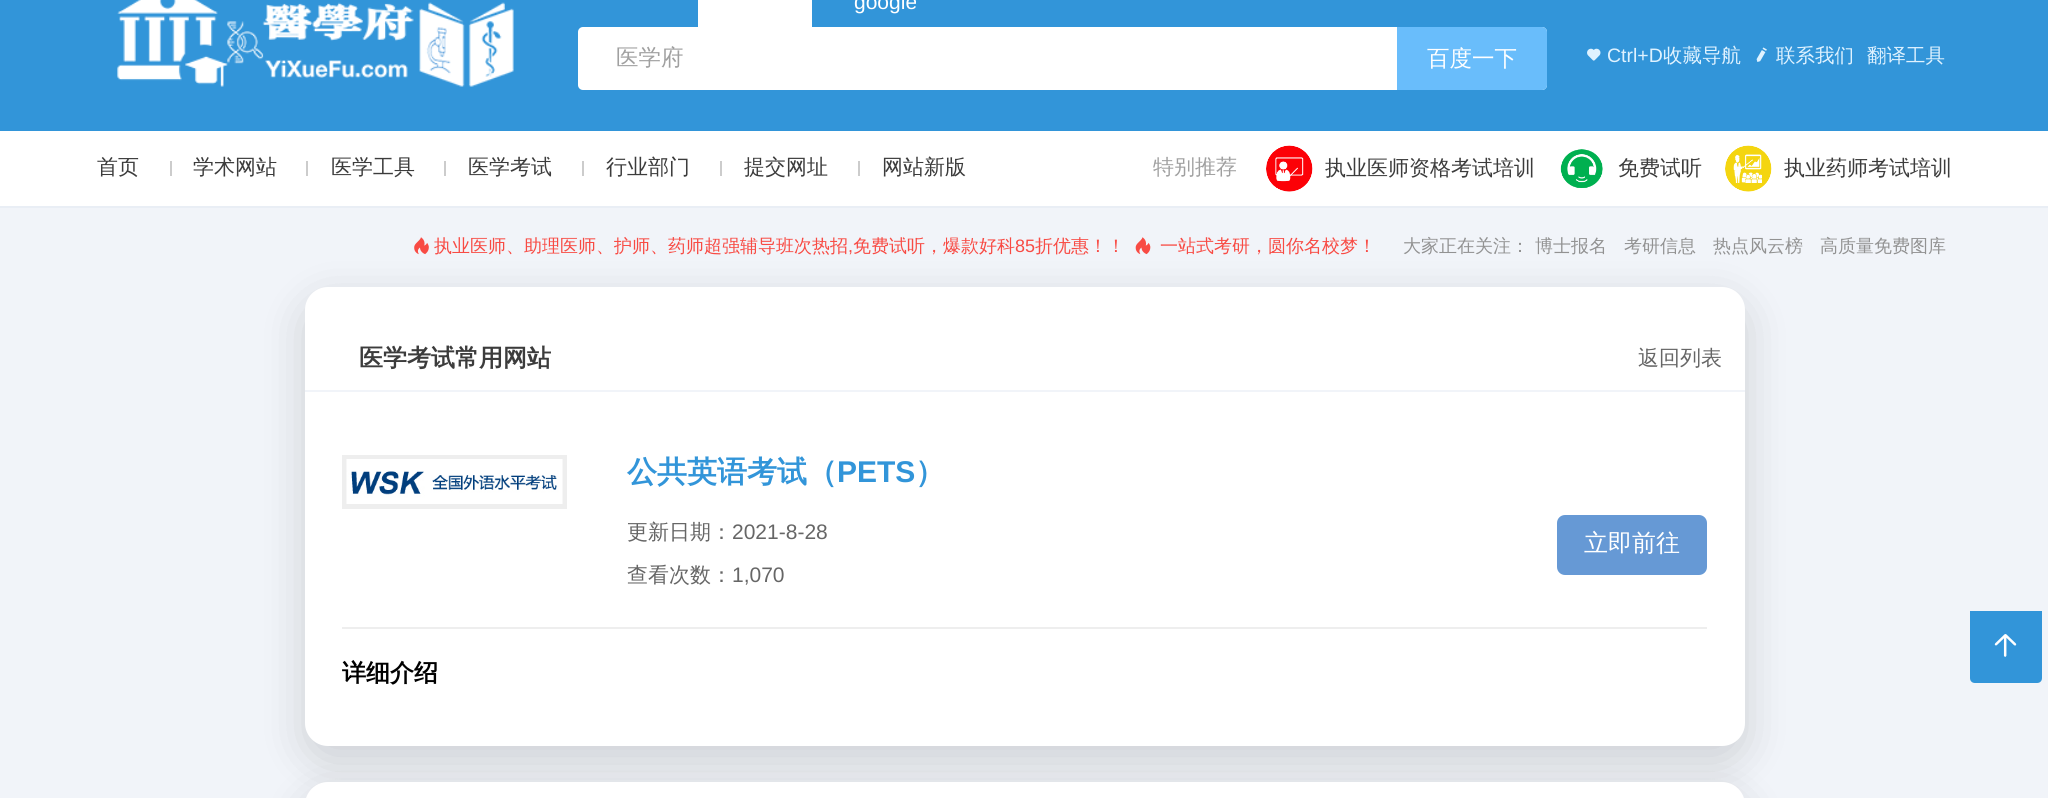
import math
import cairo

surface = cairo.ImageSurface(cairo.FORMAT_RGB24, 2048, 798)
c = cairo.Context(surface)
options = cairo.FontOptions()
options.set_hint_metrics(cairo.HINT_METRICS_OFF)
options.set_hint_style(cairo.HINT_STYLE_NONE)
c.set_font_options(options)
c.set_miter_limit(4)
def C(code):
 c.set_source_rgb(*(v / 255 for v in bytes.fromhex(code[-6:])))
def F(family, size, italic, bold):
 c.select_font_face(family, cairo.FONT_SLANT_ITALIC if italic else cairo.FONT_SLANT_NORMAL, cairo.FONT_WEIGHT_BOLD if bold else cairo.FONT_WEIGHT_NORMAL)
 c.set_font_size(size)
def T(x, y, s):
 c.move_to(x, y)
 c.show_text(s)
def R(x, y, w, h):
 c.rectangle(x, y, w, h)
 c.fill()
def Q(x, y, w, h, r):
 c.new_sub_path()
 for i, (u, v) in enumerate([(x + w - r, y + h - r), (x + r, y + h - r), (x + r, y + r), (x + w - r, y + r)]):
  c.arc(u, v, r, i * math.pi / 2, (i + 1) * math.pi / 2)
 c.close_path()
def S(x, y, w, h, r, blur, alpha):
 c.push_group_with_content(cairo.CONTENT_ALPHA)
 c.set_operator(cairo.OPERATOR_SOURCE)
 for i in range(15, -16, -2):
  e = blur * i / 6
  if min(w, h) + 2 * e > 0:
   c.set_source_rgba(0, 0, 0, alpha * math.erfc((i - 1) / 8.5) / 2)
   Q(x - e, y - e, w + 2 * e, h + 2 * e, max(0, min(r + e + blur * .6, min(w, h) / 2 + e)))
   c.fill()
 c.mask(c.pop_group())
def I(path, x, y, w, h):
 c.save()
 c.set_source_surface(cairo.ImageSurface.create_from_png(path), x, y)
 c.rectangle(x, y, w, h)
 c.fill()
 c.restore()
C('f1f4f9')
c.paint()
C('3295d9')
R(0,0,2048,131)
I('1.png',117,0,397,87)
C('ffffff')
R(698,0,114,27)
F('Liberation Sans',21,0,0)
T(854,9,'google')
Q(578,27,969,63,5)
c.fill()
F('WenQuanYi Zen Hei Medium',22.5,0,0)
C('a0a0a0')
T(616,65,'医学府')
C('69bdfb')
c.new_path()
c.move_to(1397,27)
c.line_to(1542,27)
c.curve_to(1545,27,1547,29,1547,32)
c.line_to(1547,85)
c.curve_to(1547,88,1545,90,1542,90)
c.line_to(1397,90)
c.close_path()
c.fill()
C('ffffff')
T(1427,66,'百度一下')
I('2.png',1587,48,14,13)
F('Liberation Sans',19.5,0,0)
C('dff2ff')
T(1607,62,'Ctrl+D')
F('WenQuanYi Zen Hei Medium',19.5,0,0)
T(1663,62,'收藏导航')
I('3.png',1756,47,11,15)
T(1776,62,'联系我们')
T(1867,62,'翻译工具')
C('ffffff')
R(0,131,2048,75)
C('e9eef5')
R(0,206,2048,2)
F('WenQuanYi Zen Hei Medium',21,0,0)
C('3c3c3c')
T(97,174,'首页')
C('cccccc')
R(170,161,2,15)
C('3c3c3c')
T(193,174,'学术网站')
C('cccccc')
R(306,161,2,15)
C('3c3c3c')
T(331,174,'医学工具')
C('cccccc')
R(444,161,2,15)
C('3c3c3c')
T(468,174,'医学考试')
C('cccccc')
R(582,161,2,15)
C('3c3c3c')
T(606,174,'行业部门')
C('cccccc')
R(720,161,2,15)
C('3c3c3c')
T(744,174,'提交网址')
C('cccccc')
R(858,161,2,15)
C('3c3c3c')
T(882,174,'网站新版')
C('a0a0a0')
T(1153,174,'特别推荐')
I('4.png',1266,145,47,47)
C('3c3c3c')
T(1325,175,'执业医师资格考试培训')
I('5.png',1560,149,43,39)
T(1618,175,'免费试听')
I('6.png',1725,145,47,47)
T(1784,175,'执业药师考试培训')
I('7.png',414,237,15,18)
F('WenQuanYi Zen Hei Medium',18,0,0)
C('f84b44')
T(434,252,'执业医师、助理医师、护师、药师超强辅导班次热招')
F('Liberation Sans',18,0,0)
T(848,252,',')
F('WenQuanYi Zen Hei Medium',18,0,0)
T(853,252,'免费试听，爆款好科')
F('Liberation Sans',18,0,0)
T(1015,252,'85')
F('WenQuanYi Zen Hei Medium',18,0,0)
T(1035,252,'折优惠！！')
I('8.png',1135,237,16,18)
T(1160,252,'一站式考研，圆你名校梦！')
C('929292')
T(1403,252,'大家正在关注：')
T(1535,252,'博士报名')
T(1624,252,'考研信息')
T(1713,252,'热点风云榜')
T(1820,252,'高质量免费图库')
C('000000')
S(305,302,1440,459,23,22.5,.15)
C('ffffff')
Q(305,287,1440,459,23)
c.fill()
C('f1f4f9')
R(305,390,1440,2)
F('WenQuanYi Zen Hei',24,0,1)
C('3c3c3c')
T(359,366,'医学考试常用网站')
F('WenQuanYi Zen Hei Medium',21,0,0)
C('666666')
T(1638,365,'返回列表')
C('eeeeee')
R(342,455,225,54)
I('9.png',346,459,217,45)
F('WenQuanYi Zen Hei',30,0,1)
C('3295d9')
T(627,482,'公共英语考试（')
F('Liberation Sans',30,0,1)
T(837,482,'PETS')
F('WenQuanYi Zen Hei',30,0,1)
T(915,482,'）')
F('WenQuanYi Zen Hei Medium',21,0,0)
C('666666')
T(627,539,'更新日期：')
F('Liberation Sans',21,0,0)
T(732,539,'2021-8-28')
F('WenQuanYi Zen Hei Medium',21,0,0)
T(627,582,'查看次数：')
F('Liberation Sans',21,0,0)
T(732,582,'1,070')
C('6699d5')
Q(1557,515,150,60,8)
c.fill()
F('WenQuanYi Zen Hei Medium',24,0,0)
C('ffffff')
T(1584,551,'立即前往')
C('eeeeee')
R(342,627,1365,2)
F('WenQuanYi Zen Hei',24,0,1)
C('000000')
T(342,681,'详细介绍')
C('000000')
S(305,797,1440,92,23,22.5,.15)
C('ffffff')
Q(305,782,1440,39,23)
c.fill()
C('3295d9')
c.new_path()
c.move_to(1970,611)
c.line_to(2042,611)
c.line_to(2042,678)
c.curve_to(2042,681,2040,683,2037,683)
c.line_to(1975,683)
c.curve_to(1972,683,1970,681,1970,678)
c.close_path()
c.fill()
I('10.png',1994,634,23,23)
surface.write_to_png('o.png')
